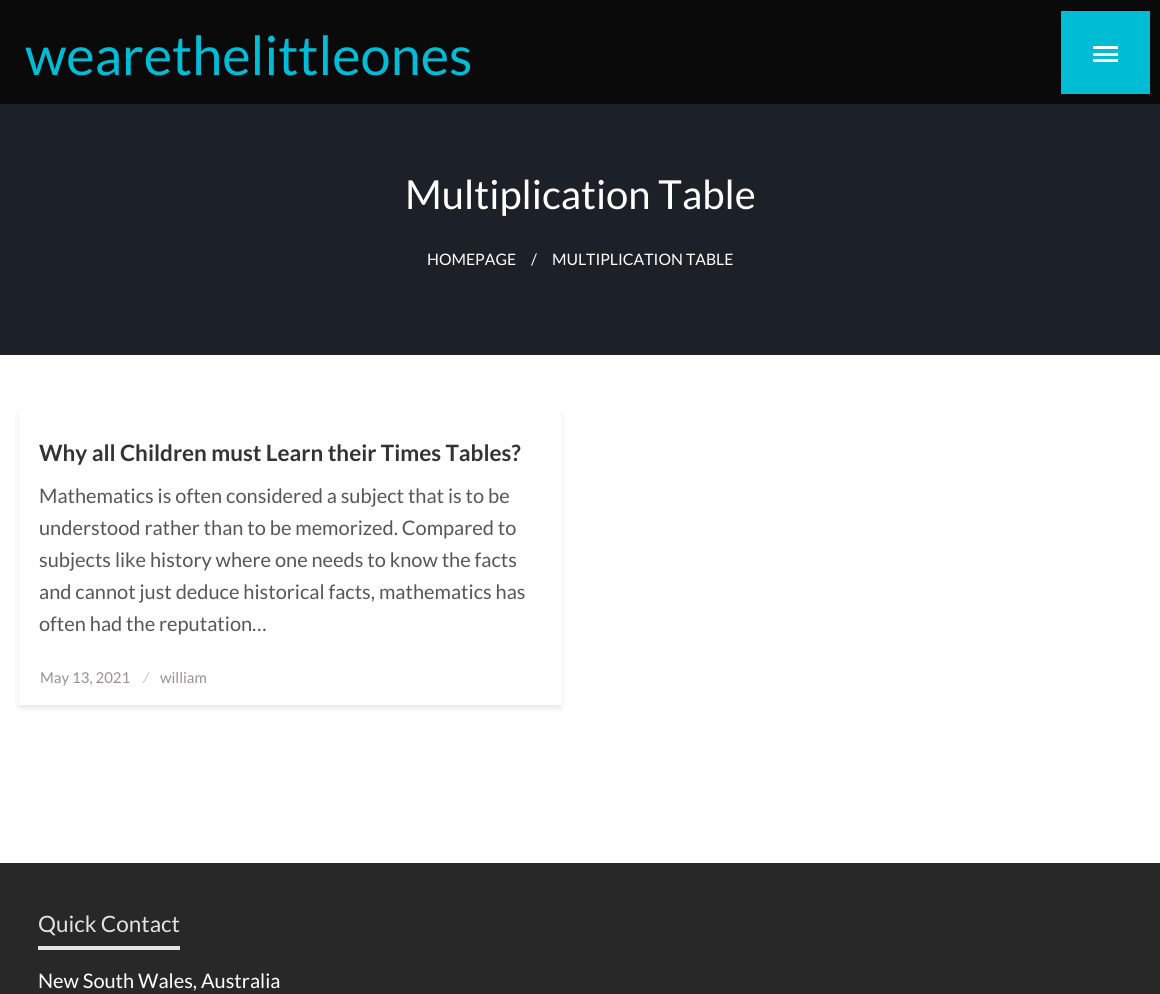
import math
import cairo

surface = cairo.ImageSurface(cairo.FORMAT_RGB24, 1160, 994)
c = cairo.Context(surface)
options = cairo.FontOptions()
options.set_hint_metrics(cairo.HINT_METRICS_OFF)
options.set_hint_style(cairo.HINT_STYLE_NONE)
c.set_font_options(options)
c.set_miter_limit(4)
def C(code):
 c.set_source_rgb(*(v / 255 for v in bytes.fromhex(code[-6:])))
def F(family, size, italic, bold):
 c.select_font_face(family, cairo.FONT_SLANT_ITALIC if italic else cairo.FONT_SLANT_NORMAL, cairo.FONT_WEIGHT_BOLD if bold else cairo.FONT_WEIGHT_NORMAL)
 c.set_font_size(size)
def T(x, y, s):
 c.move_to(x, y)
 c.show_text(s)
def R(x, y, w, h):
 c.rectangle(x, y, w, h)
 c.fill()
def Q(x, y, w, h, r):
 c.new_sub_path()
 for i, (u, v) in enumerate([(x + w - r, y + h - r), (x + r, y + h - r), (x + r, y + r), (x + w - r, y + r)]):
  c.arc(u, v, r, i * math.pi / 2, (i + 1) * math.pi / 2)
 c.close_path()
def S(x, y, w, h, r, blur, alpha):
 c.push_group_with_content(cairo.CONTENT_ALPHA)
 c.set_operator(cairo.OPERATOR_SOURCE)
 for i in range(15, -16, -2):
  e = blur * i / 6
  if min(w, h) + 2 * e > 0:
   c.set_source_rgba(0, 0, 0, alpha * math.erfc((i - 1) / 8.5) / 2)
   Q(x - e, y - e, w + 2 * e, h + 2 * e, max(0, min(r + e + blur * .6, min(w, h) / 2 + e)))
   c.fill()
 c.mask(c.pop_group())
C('0a0a0a')
c.paint()
F('Lato',54,0,0)
C('00bcd4')
T(25,75,'wearethelittleones')
R(1061,11,89,83)
C('ffffff')
R(1093,46,25,3)
R(1093,53,25,3)
R(1093,59,25,3)
R(0,355,1160,508)
C('1c2127')
R(0,104,1160,251)
F('Lato',40,0,0)
C('ffffff')
T(405,209,'Multiplication Table')
F('Lato',15.75,0,0)
T(427,265,'HOMEPAGE')
T(531,265,'/')
T(552,265,'MULTIPLICATION TABLE')
c.save()
c.set_fill_rule(cairo.FILL_RULE_EVEN_ODD)
c.new_path()
c.move_to(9,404)
c.line_to(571,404)
c.line_to(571,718)
c.line_to(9,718)
c.close_path()
c.move_to(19,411)
c.line_to(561,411)
c.line_to(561,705)
c.line_to(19,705)
c.close_path()
c.clip()
C('000000')
S(19,414,542,294,0,3,.1)
c.restore()
F('Lato',22.5,0,1)
C('333333')
T(39,461,'Why all Children must Learn their Times Tables?')
F('Lato',20,0,0)
C('565656')
T(39,503,'Mathematics is often considered a subject that is to be')
T(39,535,'understood rather than to be memorized. Compared to')
T(39,567,'subjects like history where one needs to know the facts')
T(39,599,'and cannot just deduce historical facts, mathematics has')
T(39,631,'often had the reputation…')
F('Lato',15,0,0)
C('969292')
T(40,683,'May 13, 2021')
C('c0c0c0')
T(144,683,'⁄')
C('969292')
T(160,683,'william')
C('282828')
R(0,863,1160,131)
C('e3e3e3')
R(38,946,142,4)
F('Lato',22.5,0,0)
T(38,932,'Quick Contact')
F('Lato',20,0,0)
C('ffffff')
T(38,988,'New South Wales, Australia')
surface.write_to_png('o.png')
